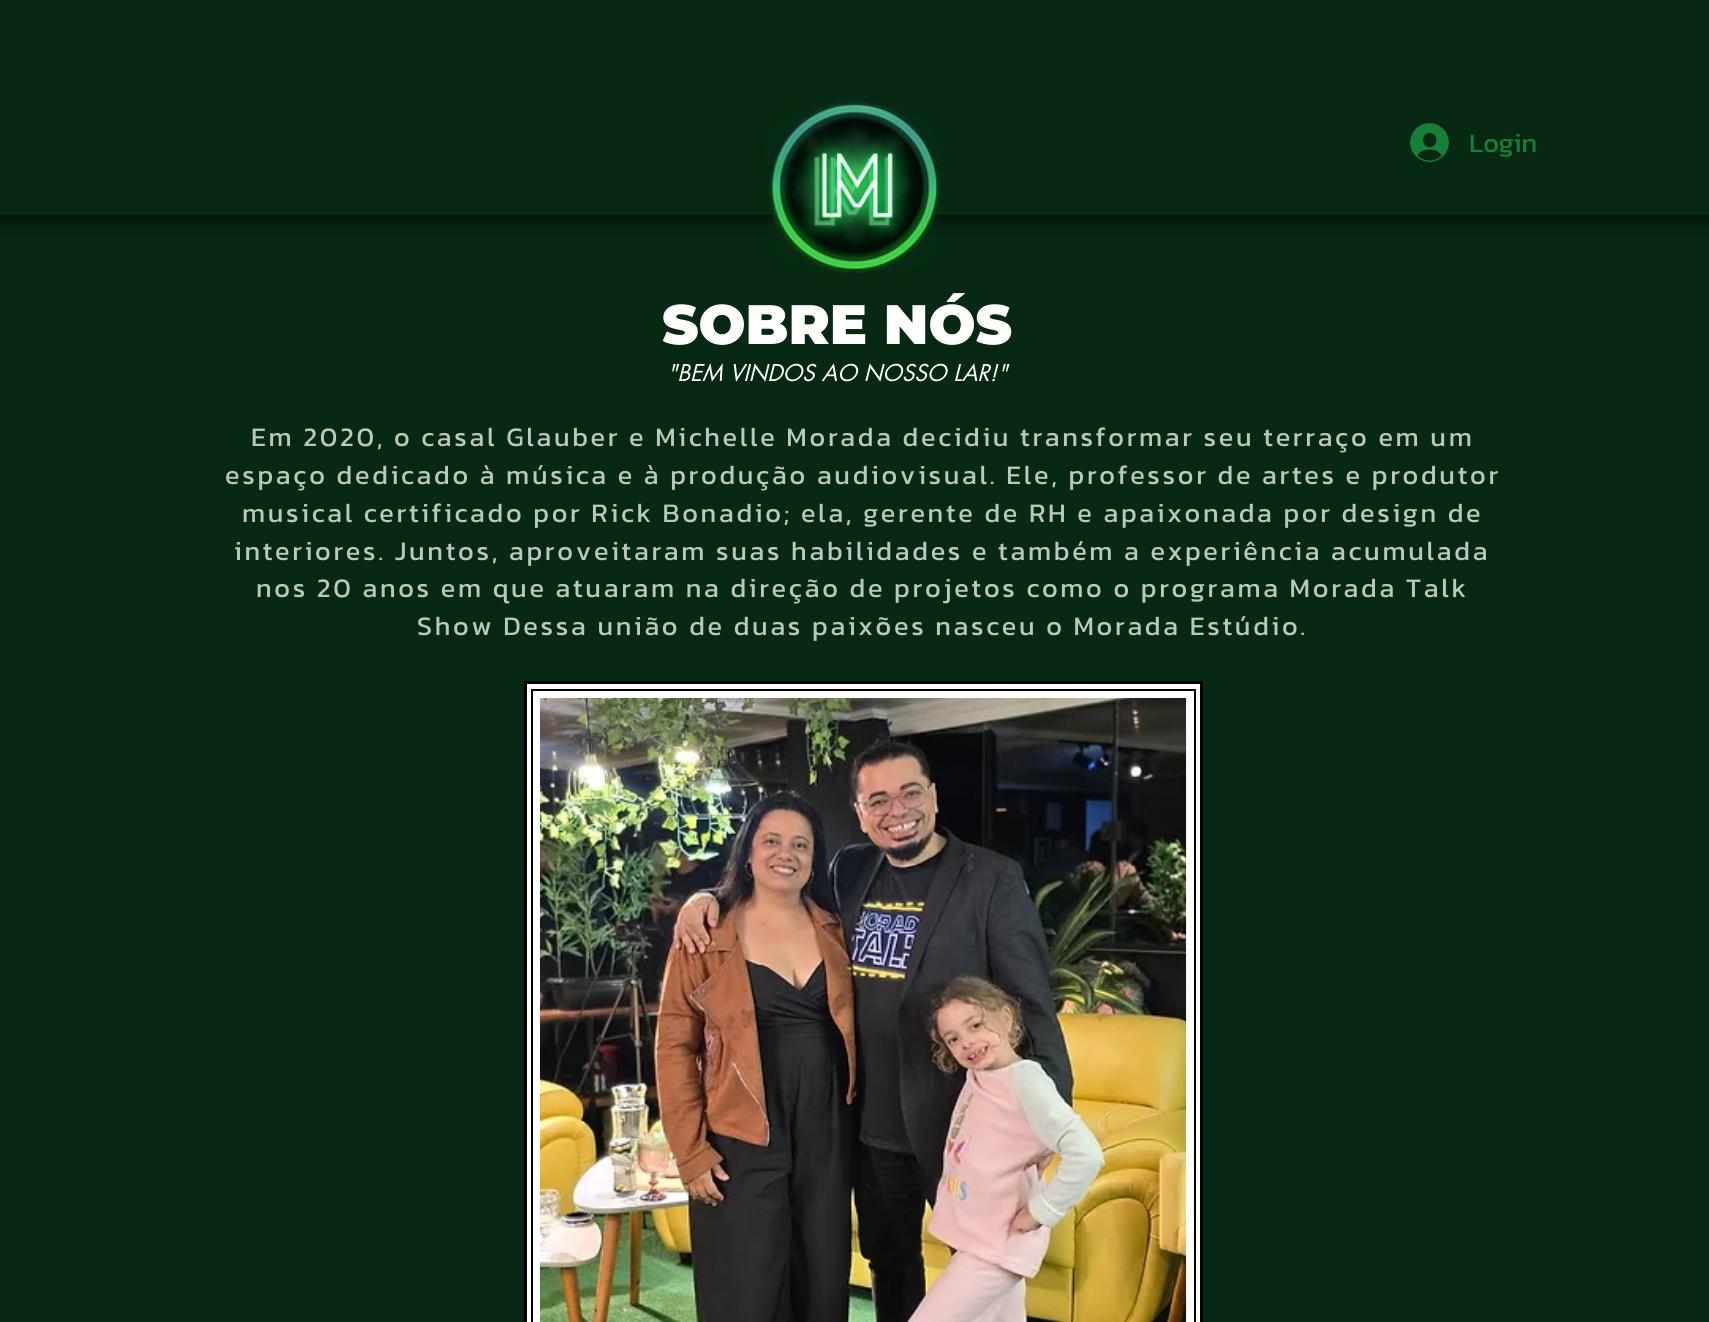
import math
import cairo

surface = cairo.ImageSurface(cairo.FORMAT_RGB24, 1709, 1322)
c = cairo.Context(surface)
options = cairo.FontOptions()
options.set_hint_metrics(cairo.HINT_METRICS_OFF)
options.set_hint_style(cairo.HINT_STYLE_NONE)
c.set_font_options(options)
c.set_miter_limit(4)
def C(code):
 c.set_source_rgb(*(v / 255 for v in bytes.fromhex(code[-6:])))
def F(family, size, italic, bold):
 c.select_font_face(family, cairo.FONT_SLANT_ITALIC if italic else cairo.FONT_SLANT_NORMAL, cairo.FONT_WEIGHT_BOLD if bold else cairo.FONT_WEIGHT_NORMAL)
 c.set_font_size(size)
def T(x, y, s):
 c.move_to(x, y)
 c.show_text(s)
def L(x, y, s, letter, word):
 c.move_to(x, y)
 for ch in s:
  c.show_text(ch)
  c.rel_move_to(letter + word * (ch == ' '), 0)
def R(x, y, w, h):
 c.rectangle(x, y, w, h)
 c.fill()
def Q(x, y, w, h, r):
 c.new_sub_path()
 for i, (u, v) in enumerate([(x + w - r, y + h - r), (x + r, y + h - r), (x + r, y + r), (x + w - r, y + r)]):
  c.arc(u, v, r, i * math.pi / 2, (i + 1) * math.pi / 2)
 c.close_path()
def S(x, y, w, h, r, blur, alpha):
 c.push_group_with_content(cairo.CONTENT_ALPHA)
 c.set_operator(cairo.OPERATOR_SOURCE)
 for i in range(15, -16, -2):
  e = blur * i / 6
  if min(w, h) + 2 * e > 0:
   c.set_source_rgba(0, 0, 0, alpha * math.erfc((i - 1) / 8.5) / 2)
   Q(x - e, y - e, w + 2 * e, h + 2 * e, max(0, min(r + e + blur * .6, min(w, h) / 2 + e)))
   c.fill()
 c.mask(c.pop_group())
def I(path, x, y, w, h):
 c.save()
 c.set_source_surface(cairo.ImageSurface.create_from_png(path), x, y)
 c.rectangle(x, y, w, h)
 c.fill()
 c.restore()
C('072812')
c.paint()
C('000000')
S(0,6,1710,215,0,8,.6)
C('072812')
R(0,0,1709,215)
I('1.png',765,100,178,173)
I('2.png',1410,123,39,39)
F('Kanit',27,0,0)
C('178037')
T(1469,152,'Login')
F('Montserrat Thin',55.5,0,0)
C('fffffe')
T(662,344,'SOBRE NÓS')
F('futura',22.5,1,0)
T(667,381,'"BEM VINDOS AO NOSSO LAR!"')
F('Kanit',27,0,0)
C('bbc8bf')
L(251,446,'Em 2020, o casal Glauber e Michelle Morada decidiu transformar seu terraço em um',2.7,0)
L(225,484,'espaço dedicado à música e à produção audiovisual. Ele, professor de artes e produtor',2.7,0)
L(242,522,'musical certificado por Rick Bonadio; ela, gerente de RH e apaixonada por design de',2.7,0)
L(234,560,'interiores. Juntos, aproveitaram suas habilidades e também a experiência acumulada',2.7,0)
L(256,597,'nos 20 anos em que atuaram na direção de projetos como o programa Morada Talk',2.7,0)
L(417,635,'Show Dessa união de duas paixões nasceu o Morada Estúdio.',2.7,0)
C('ffffff')
c.rectangle(525.5,682.5,676,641)
c.fill_preserve()
C('000000')
c.set_line_width(3)
c.stroke()
I('3.png',540,698,647,624)
c.rectangle(532,690,663,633)
c.set_line_width(2)
c.stroke()
surface.write_to_png('o.png')
